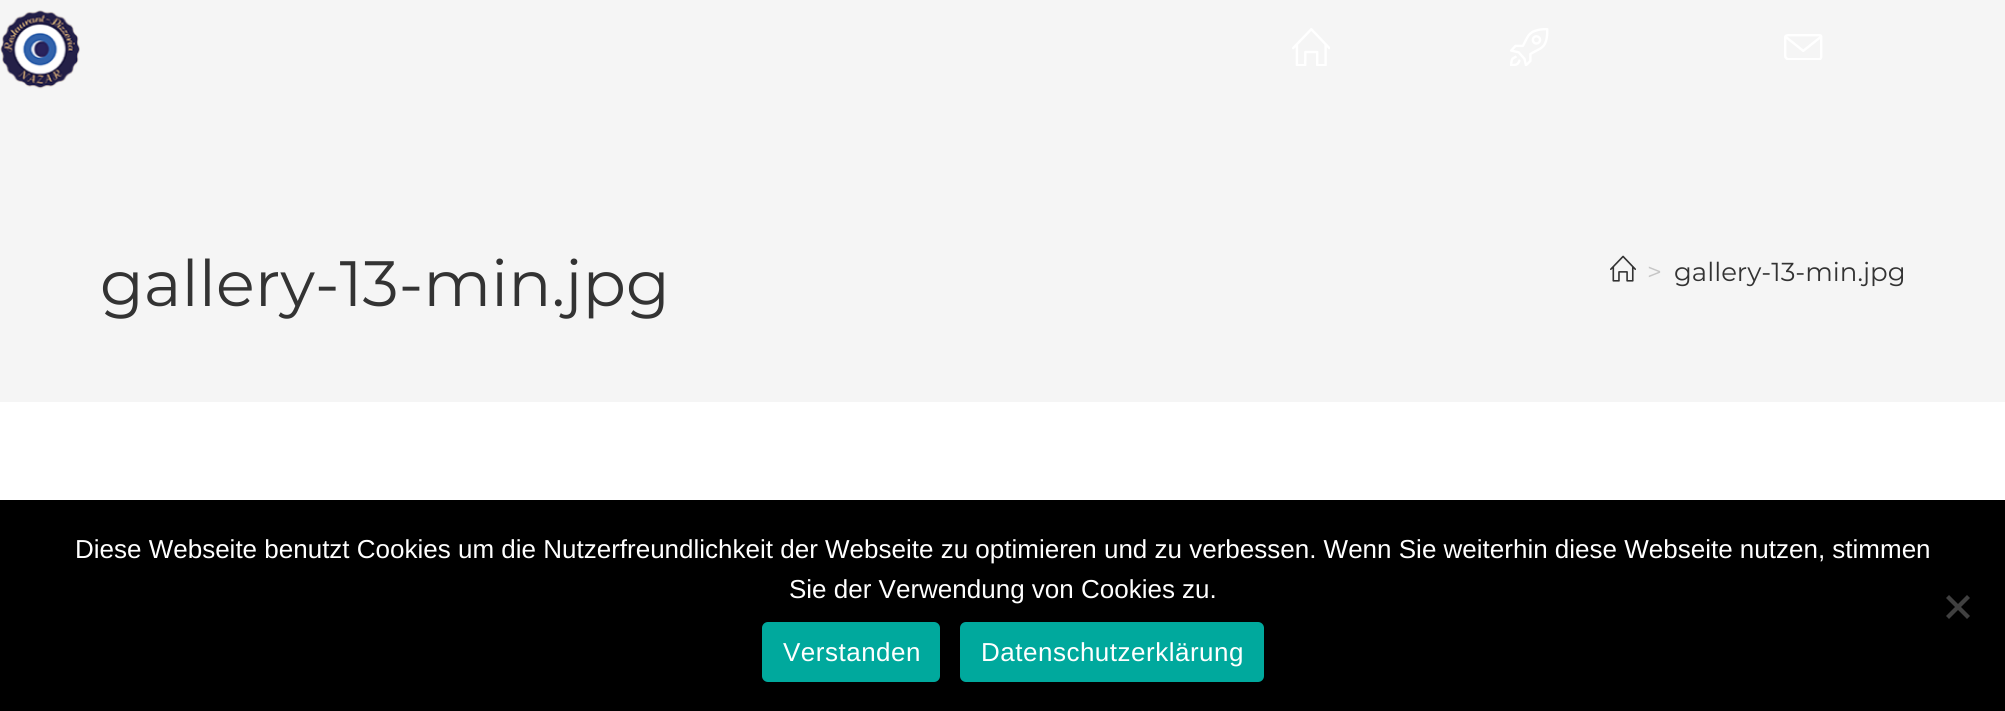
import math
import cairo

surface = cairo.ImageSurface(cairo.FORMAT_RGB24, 2005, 711)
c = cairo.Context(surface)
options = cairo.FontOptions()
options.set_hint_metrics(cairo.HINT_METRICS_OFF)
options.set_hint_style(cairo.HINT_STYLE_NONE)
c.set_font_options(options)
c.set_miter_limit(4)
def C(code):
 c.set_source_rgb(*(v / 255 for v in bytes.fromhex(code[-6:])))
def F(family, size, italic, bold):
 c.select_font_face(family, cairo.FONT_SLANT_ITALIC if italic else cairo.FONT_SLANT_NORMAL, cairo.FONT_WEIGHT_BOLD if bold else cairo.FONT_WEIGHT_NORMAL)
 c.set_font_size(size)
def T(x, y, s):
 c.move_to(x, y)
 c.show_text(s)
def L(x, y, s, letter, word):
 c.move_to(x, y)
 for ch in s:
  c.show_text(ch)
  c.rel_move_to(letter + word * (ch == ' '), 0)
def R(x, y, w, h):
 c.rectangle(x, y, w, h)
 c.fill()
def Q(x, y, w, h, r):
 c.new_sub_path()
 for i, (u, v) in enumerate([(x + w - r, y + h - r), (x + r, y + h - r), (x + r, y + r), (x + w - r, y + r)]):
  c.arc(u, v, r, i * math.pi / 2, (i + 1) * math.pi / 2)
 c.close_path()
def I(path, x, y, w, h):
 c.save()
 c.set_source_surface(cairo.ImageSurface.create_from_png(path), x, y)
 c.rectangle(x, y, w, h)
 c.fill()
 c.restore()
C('ffffff')
c.paint()
C('f5f5f5')
R(0,0,2005,402)
I('1.png',0,10,80,79)
I('2.png',1292,28,38,38)
I('3.png',1510,28,39,38)
I('4.png',1784,34,39,26)
F('Montserrat',64,0,0)
C('333333')
T(100,306,'gallery-13-min.jpg')
I('5.png',1610,255,26,27)
F('Montserrat',26,0,0)
C('c6c6c6')
T(1647,281,'>')
C('333333')
T(1674,281,'gallery-13-min.jpg')
C('000000')
R(0,500,2005,211)
F('Liberation Sans',26,0,0)
C('ffffff')
T(75,558,'Diese Webseite benutzt Cookies um die Nutzerfreundlichkeit der Webseite zu optimieren und zu verbessen. Wenn Sie weiterhin diese Webseite nutzen, stimmen')
T(789,598,'Sie der Verwendung von Cookies zu.')
C('404040')
c.new_path()
c.move_to(1967,595)
c.line_to(1970,598)
c.line_to(1949,619)
c.line_to(1946,616)
c.close_path()
c.fill()
c.new_path()
c.move_to(1946,598)
c.line_to(1949,595)
c.line_to(1970,616)
c.line_to(1967,619)
c.close_path()
c.fill()
C('00a99d')
Q(762,622,178,60,6)
c.fill()
C('ffffff')
L(783,661,'Verstanden',.5,0)
C('00a99d')
Q(960,622,304,60,6)
c.fill()
C('ffffff')
L(981,661,'Datenschutzerklärung',.5,0)
surface.write_to_png('o.png')
